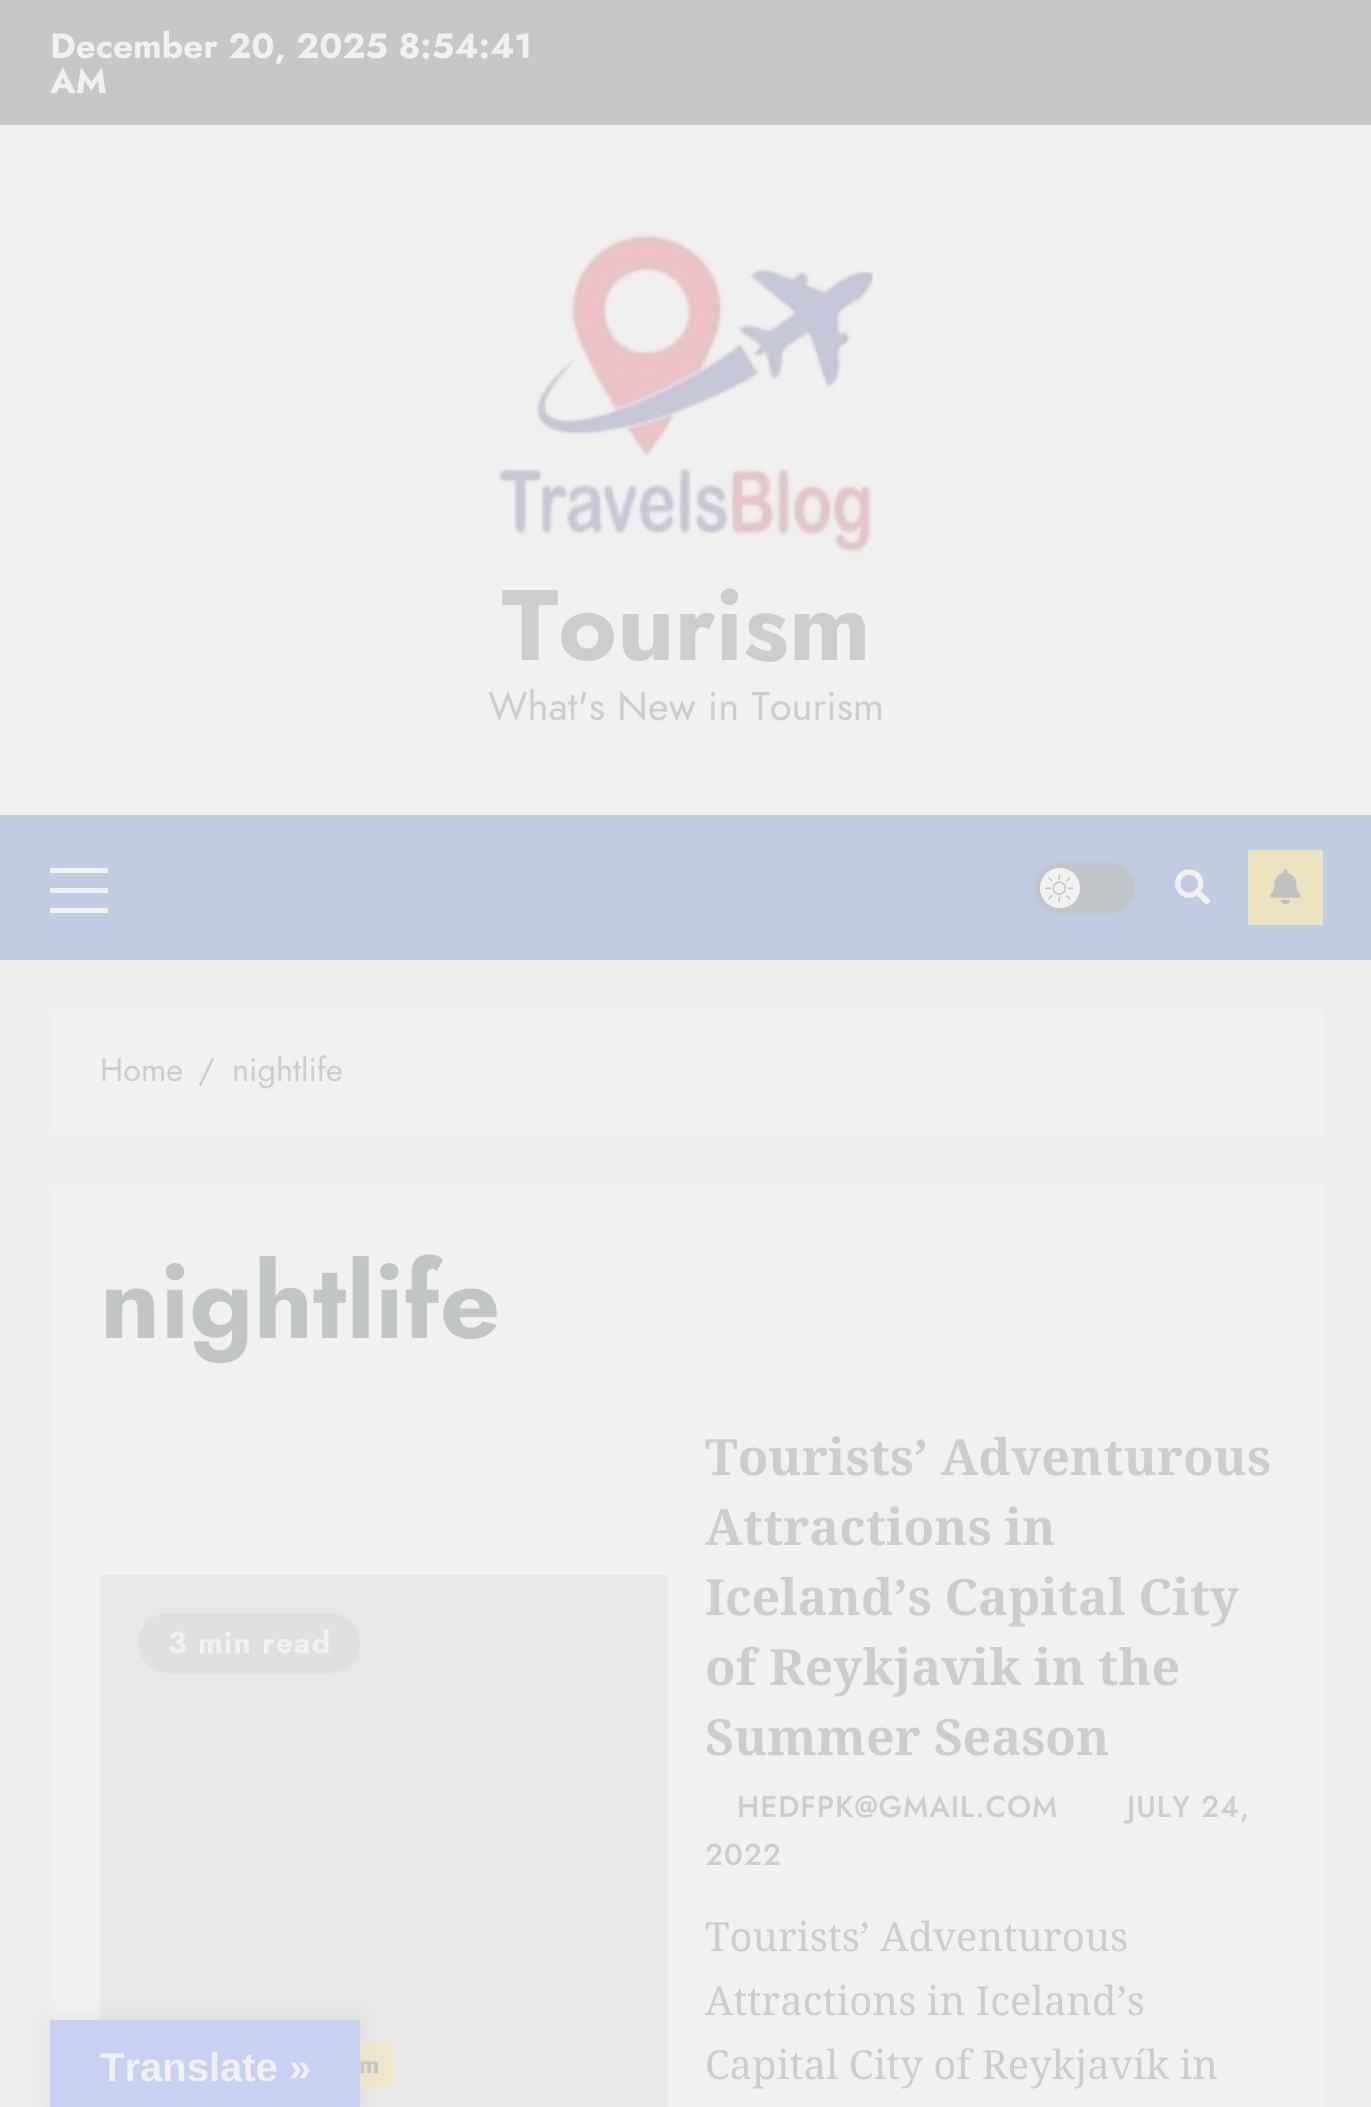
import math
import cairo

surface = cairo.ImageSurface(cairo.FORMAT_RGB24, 1371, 2107)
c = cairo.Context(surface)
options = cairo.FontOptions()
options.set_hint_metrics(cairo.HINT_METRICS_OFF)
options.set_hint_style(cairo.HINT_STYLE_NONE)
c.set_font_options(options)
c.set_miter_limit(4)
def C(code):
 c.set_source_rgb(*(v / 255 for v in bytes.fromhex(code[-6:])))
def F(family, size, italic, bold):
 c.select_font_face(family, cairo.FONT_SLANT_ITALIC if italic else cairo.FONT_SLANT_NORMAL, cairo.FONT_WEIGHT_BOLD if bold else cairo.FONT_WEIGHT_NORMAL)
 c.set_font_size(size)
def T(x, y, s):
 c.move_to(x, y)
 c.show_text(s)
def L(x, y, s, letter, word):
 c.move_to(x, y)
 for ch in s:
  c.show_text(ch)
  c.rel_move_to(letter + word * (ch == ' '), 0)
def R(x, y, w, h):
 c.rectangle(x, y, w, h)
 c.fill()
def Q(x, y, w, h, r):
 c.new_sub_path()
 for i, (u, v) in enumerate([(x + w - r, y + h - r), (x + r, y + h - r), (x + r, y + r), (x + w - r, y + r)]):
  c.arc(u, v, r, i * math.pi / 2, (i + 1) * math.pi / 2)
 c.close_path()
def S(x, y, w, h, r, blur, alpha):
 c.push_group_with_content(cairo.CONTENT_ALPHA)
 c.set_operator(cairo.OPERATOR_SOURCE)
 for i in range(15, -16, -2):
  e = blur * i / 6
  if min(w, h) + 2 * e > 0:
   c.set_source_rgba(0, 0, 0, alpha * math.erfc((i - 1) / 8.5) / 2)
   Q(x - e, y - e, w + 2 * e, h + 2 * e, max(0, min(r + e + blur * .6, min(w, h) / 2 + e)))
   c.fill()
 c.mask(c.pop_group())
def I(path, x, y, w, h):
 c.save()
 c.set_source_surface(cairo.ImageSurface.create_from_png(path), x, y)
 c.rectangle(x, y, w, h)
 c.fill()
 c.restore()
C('eeeeee')
c.paint()
C('c7c7c7')
R(0,0,1371,125)
F('Jost',35,0,1)
C('f1f1f1')
T(50,58,'December 20, 2025 8:54:41')
T(50,93,'AM')
R(0,125,1371,690)
I('1.png',497,200,376,362)
F('Jost',100,0,1)
C('cdcdcd')
T(502,660,'Tourism')
F('Jost',40,0,0)
T(488,720,'What\'s New in Tourism')
C('c1cce3')
R(0,815,1371,145)
C('f1f1f1')
R(50,888,58,5)
R(50,868,58,5)
R(50,908,58,5)
C('c1c4c9')
Q(1035,863,100,50,25)
c.fill()
C('f1f1f1')
c.arc(1060,888,20,0,2 * math.pi)
c.fill()
I('2.png',1045,874,29,29)
I('3.png',1175,869,35,36)
C('ece4c1')
R(1248,850,75,75)
I('4.png',1270,869,31,36)
C('f1f1f1')
R(50,1010,1273,125)
F('Jost',32.5,0,0)
C('cdcdcd')
T(100,1081,'Home')
T(198,1081,'/')
T(232,1081,'nightlife')
C('f1f1f1')
R(50,1185,1273,922)
F('Jost',105,0,1)
C('c1c6c4')
T(100,1338,'nightlife')
C('e8e8e8')
R(100,1575,568,532)
C('e0e0e0')
Q(138,1613,222,60,30)
c.fill()
F('Jost',30,0,1)
C('f1f1f1')
L(168,1653,'3 min read',1.25,0)
C('f1e7cb')
R(360,2043,35,45)
F('Jost',25,0,1)
C('c1c6c4')
T(359,2073,'m')
F('Noto Serif',50,0,1)
C('cdcdcd')
T(705,1475,'Tourists’ Adventurous')
T(705,1545,'Attractions in')
T(705,1615,'Iceland’s Capital City')
T(705,1685,'of Reykjavik in the')
T(705,1755,'Summer Season')
F('Jost Medium',30,0,0)
L(737,1817,'HEDFPK@GMAIL.COM',.9,0)
L(1127,1817,'JULY 24,',.9,0)
L(705,1865,'2022',.9,0)
F('Noto Serif',40,0,0)
T(705,1951,'Tourists’ Adventurous')
T(705,2015,'Attractions in Iceland’s')
T(705,2079,'Capital City of Reykjavík in')
C('c1c1c1')
S(50,2020,310,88,0,11,.3)
C('c9d1f1')
R(50,2020,310,87)
F('Liberation Sans',40,0,1)
C('f1f1f1')
T(100,2081,'Translate »')
surface.write_to_png('o.png')
